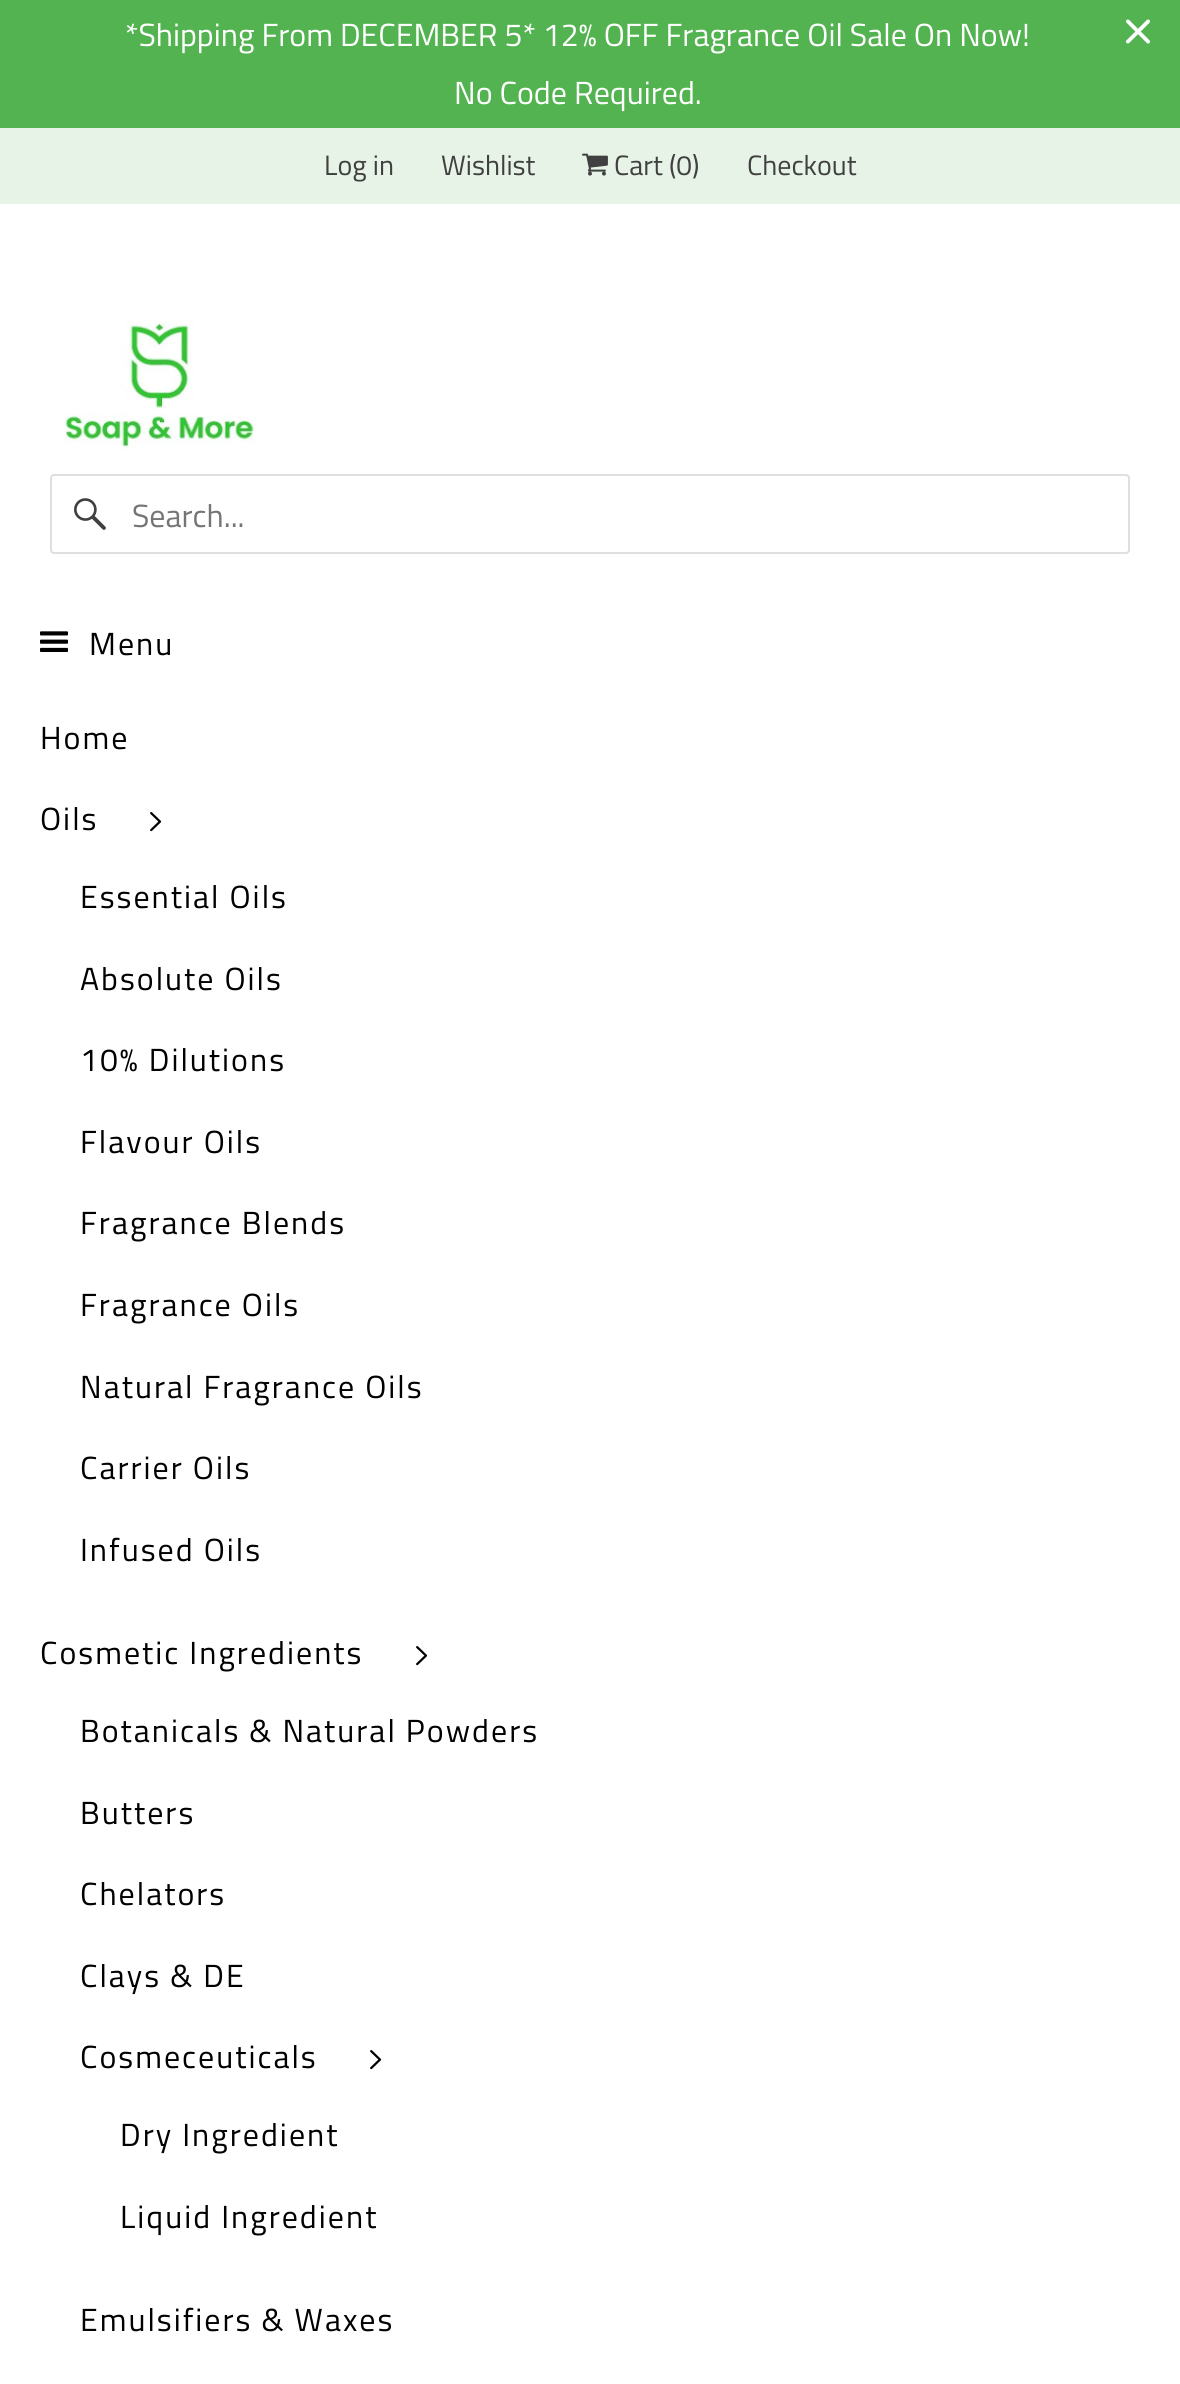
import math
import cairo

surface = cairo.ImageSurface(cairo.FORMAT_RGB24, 1180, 2384)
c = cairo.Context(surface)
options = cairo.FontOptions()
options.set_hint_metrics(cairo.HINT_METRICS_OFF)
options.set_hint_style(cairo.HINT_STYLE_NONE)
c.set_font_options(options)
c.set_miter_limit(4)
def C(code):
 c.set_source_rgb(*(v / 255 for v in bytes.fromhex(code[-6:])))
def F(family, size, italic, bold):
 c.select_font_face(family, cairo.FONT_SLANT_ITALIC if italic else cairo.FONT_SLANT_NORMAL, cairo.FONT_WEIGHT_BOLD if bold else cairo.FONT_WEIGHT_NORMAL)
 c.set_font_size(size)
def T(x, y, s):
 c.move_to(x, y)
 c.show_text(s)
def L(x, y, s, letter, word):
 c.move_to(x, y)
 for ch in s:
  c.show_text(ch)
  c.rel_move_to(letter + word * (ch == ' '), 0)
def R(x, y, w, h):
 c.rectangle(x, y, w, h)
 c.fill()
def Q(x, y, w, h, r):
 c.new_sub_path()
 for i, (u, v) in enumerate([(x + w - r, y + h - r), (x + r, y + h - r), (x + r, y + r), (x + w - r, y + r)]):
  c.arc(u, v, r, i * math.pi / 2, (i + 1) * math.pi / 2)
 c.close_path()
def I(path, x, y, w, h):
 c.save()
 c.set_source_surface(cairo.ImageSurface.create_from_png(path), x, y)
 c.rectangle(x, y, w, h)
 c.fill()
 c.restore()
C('ffffff')
c.paint()
C('53b350')
R(0,0,1180,128)
F('Titillium Web',32,0,0)
C('ffffff')
T(125,46,'*Shipping From DECEMBER 5* 12% OFF Fragrance Oil Sale On Now!')
T(454,104,'No Code Required.')
I('1.png',1126,19,25,25)
C('e6f3e6')
R(0,128,1180,76)
F('Titillium Web',28,0,0)
C('404040')
T(324,175,'Log in')
T(441,175,'Wishlist')
I('2.png',582,153,26,23)
T(614,175,'Cart (0)')
T(747,175,'Checkout')
I('3.png',65,321,189,128)
Q(51,475,1078,78,3)
C('dfdfdf')
c.stroke()
I('4.png',74,498,32,32)
F('Titillium Web',32,0,0)
C('757575')
T(132,527,'Search...')
I('5.png',40,631,28,21)
C('000000')
L(89,655,'Menu',2,0)
L(40,749,'Home',2,0)
L(40,830,'Oils',2,0)
I('6.png',150,812,12,20)
L(80,908,'Essential Oils',2,0)
L(80,990,'Absolute Oils',2,0)
L(80,1071,'10% Dilutions',2,0)
L(80,1153,'Flavour Oils',2,0)
L(80,1234,'Fragrance Blends',2,0)
L(80,1316,'Fragrance Oils',2,0)
L(80,1398,'Natural Fragrance Oils',2,0)
L(80,1479,'Carrier Oils',2,0)
L(80,1561,'Infused Oils',2,0)
L(40,1664,'Cosmetic Ingredients',2,0)
I('6.png',416,1646,12,20)
L(80,1742,'Botanicals & Natural Powders',2,0)
L(80,1824,'Butters',2,0)
L(80,1905,'Chelators',2,0)
L(80,1987,'Clays & DE',2,0)
L(80,2068,'Cosmeceuticals',2,0)
I('6.png',370,2050,12,20)
L(120,2146,'Dry Ingredient',2,0)
L(120,2228,'Liquid Ingredient',2,0)
L(80,2331,'Emulsifiers & Waxes',2,0)
surface.write_to_png('o.png')
